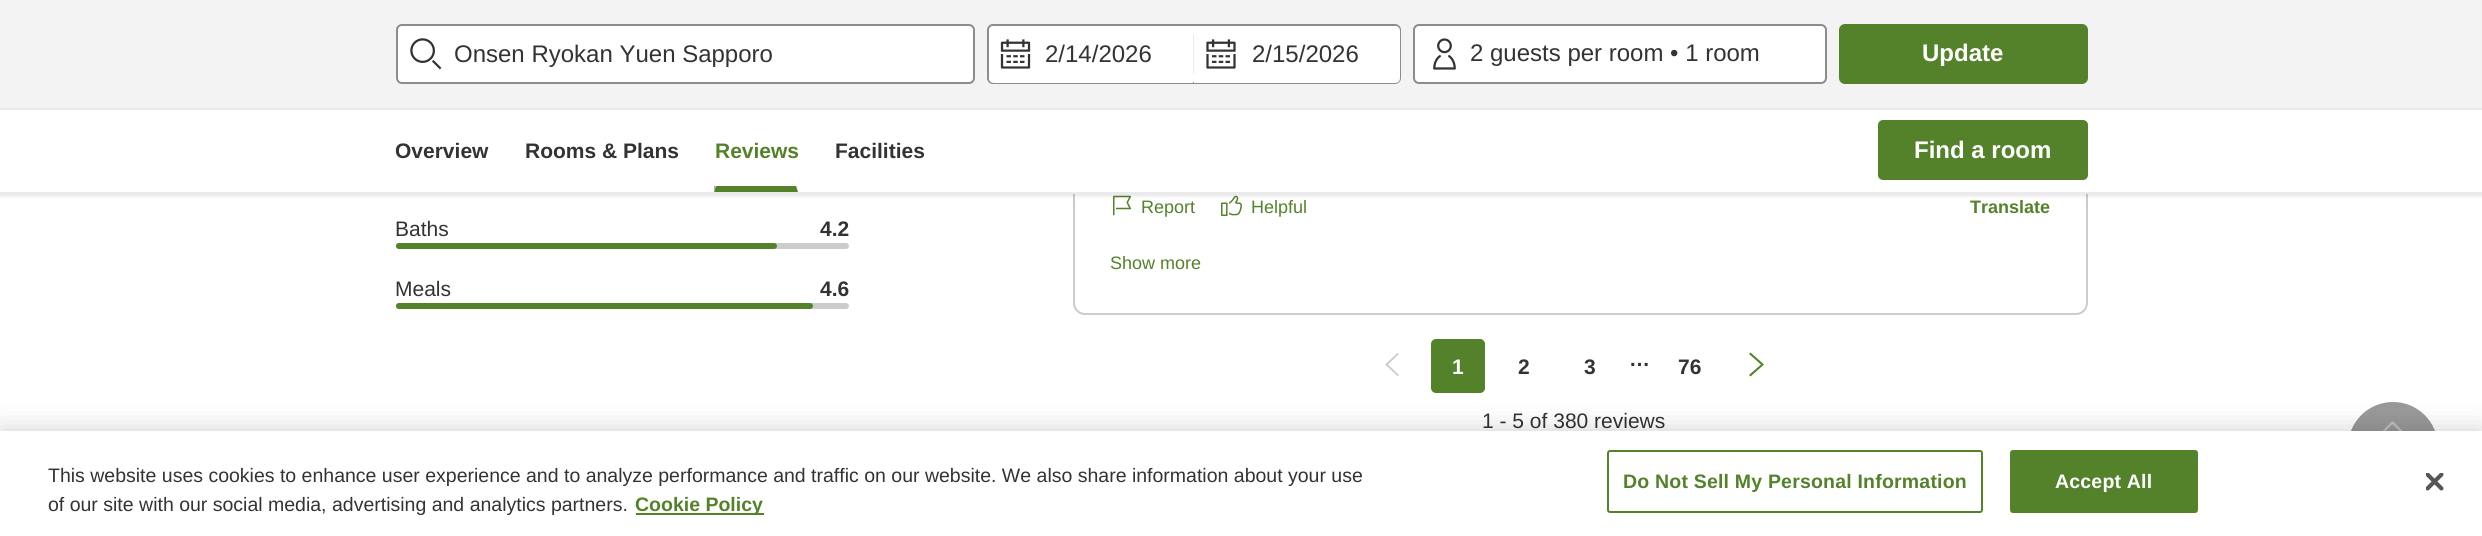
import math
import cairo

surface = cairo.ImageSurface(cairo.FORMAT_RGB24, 2482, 536)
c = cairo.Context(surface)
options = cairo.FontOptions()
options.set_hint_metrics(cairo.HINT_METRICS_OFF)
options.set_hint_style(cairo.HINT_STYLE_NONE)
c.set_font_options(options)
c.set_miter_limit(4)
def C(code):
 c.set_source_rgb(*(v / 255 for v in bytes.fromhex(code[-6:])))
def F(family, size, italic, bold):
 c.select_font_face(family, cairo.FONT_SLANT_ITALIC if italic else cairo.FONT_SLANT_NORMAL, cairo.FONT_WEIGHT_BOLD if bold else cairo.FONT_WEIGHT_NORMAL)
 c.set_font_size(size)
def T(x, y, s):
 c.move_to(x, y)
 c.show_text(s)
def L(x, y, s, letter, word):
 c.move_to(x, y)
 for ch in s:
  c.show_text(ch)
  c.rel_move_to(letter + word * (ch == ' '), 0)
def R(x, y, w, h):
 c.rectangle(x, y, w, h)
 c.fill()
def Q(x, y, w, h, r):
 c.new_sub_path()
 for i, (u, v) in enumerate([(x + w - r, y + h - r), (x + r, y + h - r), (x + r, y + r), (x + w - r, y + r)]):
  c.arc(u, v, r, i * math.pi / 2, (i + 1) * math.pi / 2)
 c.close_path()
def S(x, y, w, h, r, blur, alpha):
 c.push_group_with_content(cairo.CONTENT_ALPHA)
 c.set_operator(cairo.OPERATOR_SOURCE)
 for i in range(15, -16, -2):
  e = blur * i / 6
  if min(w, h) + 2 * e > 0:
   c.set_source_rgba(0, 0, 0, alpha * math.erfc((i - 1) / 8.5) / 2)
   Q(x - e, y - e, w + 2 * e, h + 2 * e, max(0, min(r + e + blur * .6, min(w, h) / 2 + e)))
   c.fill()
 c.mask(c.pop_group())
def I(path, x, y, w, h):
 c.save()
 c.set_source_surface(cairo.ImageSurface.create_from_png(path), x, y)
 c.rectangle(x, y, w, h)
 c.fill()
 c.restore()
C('ffffff')
c.paint()
Q(1074,-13,1013,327,11)
C('cccccc')
c.stroke()
I('5.png',1113,195,18,21)
I('6.png',1221,195,21,21)
C('000000')
S(0,108,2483,86,0,3,.2)
C('f3f3f3')
R(0,0,2482,108)
C('eaeaea')
R(0,108,2482,2)
C('ffffff')
Q(397,25,577,58,5)
c.fill_preserve()
C('8c8c8c')
c.stroke()
I('1.png',410,38,32,32)
F('Liberation Sans',24,0,0)
C('333333')
T(454,62,'Onsen Ryokan Yuen Sapporo')
C('ffffff')
Q(988,25,412,58,5)
c.fill_preserve()
C('8c8c8c')
c.stroke()
C('ffffff')
c.new_path()
c.move_to(994,26)
c.line_to(1193,26)
c.line_to(1193,83)
c.line_to(994,83)
c.curve_to(991,83,989,81,989,78)
c.line_to(989,31)
c.curve_to(989,28,991,26,994,26)
c.close_path()
c.fill()
I('2.png',1000,39,31,30)
C('333333')
T(1045,62,'2/14/2026')
C('eaeaea')
R(1193,35,1,39)
C('ffffff')
c.new_path()
c.move_to(1194,26)
c.line_to(1395,26)
c.curve_to(1398,26,1400,28,1400,31)
c.line_to(1400,78)
c.curve_to(1400,81,1398,83,1395,83)
c.line_to(1194,83)
c.close_path()
c.fill()
I('3.png',1206,39,30,30)
C('333333')
T(1252,62,'2/15/2026')
C('ffffff')
Q(1414,25,412,58,5)
c.fill_preserve()
C('8c8c8c')
c.stroke()
I('4.png',1433,38,23,32)
C('333333')
T(1470,61,'2 guests per room • 1 room')
C('54822b')
Q(1839,24,249,60,6)
c.fill()
F('Liberation Sans',24,0,1)
C('ffffff')
T(1922,61,'Update')
R(0,110,2482,82)
C('eaeaea')
R(0,192,2482,2)
F('Liberation Sans',21,0,1)
C('333333')
T(395,158,'Overview')
C('eeeeee')
c.new_path()
c.move_to(798,186)
c.line_to(798,192)
c.line_to(796.5,186)
c.close_path()
c.fill()
C('54822b')
c.new_path()
c.move_to(798,192)
c.line_to(714,192)
c.line_to(716,186)
c.line_to(796,186)
c.close_path()
c.fill()
C('9f9f9f')
c.new_path()
c.move_to(714,192)
c.line_to(714,186)
c.line_to(715.5,186)
c.close_path()
c.fill()
C('333333')
T(525,158,'Rooms & Plans')
C('54822b')
T(715,158,'Reviews')
C('333333')
T(835,158,'Facilities')
C('54822b')
Q(1878,120,210,60,5)
c.fill()
F('Liberation Sans',24,0,1)
C('ffffff')
T(1914,158,'Find a room')
F('Liberation Sans',21,0,0)
C('333333')
T(395,236,'Baths')
F('Liberation Sans',21,0,1)
T(820,236,'4.2')
C('cccccc')
Q(396,243,453,6,3)
c.fill()
C('54822b')
Q(396,243,381,6,3)
c.fill()
F('Liberation Sans',21,0,0)
C('333333')
T(395,296,'Meals')
F('Liberation Sans',21,0,1)
T(820,296,'4.6')
C('cccccc')
Q(396,303,453,6,3)
c.fill()
C('54822b')
Q(396,303,417,6,3)
c.fill()
F('Liberation Sans',18,0,0)
T(1141,213,'Report')
T(1251,213,'Helpful')
F('Liberation Sans',18,0,1)
T(1970,213,'Translate')
F('Liberation Sans',18,0,0)
T(1110,269,'Show more')
C('cccccc')
c.new_path()
c.move_to(1397.5,353)
c.line_to(1399,354)
c.line_to(1388,364.5)
c.line_to(1399,375)
c.line_to(1397.5,376)
c.line_to(1385,364.5)
c.close_path()
c.fill()
C('54822b')
Q(1431,339,54,54,5)
c.fill()
F('Liberation Sans',21,0,1)
C('ffffff')
T(1452,374,'1')
C('333333')
T(1518,374,'2')
T(1584,374,'3')
T(1629,366,'…')
T(1678,374,'76')
C('54822b')
c.new_path()
c.move_to(1750.5,376.5)
c.line_to(1749,375)
c.line_to(1761,364.5)
c.line_to(1749,354)
c.line_to(1750.5,352.5)
c.line_to(1764,364.5)
c.close_path()
c.fill()
F('Liberation Sans',21,0,0)
C('333333')
T(1482,428,'1 - 5 of 380 reviews')
C('999999')
c.new_path()
c.arc(2393,447,45,0,2 * math.pi)
c.fill()
I('7.png',2382,421,21,10)
C('000000')
S(0,431,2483,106,0,13.5,.2)
C('ffffff')
R(0,431,2482,105)
F('Liberation Sans',19.5,0,0)
C('333333')
T(48,482,'This website uses cookies to enhance user experience and to analyze performance and traffic on our website. We also share information about your use')
T(48,511,'of our site with our social media, advertising and analytics partners.')
C('54822b')
R(636,513,128,2)
F('Liberation Sans',19.5,0,1)
T(635,511,'Cookie Policy')
Q(1608,451,374,61,2)
c.stroke()
L(1623,488,'Do Not Sell My Personal Information',.2,0)
Q(2011,451,186,61,2)
c.fill_preserve()
c.stroke()
C('ffffff')
L(2055,488,'Accept All',.2,0)
I('8.png',2426,473,18,18)
surface.write_to_png('o.png')
